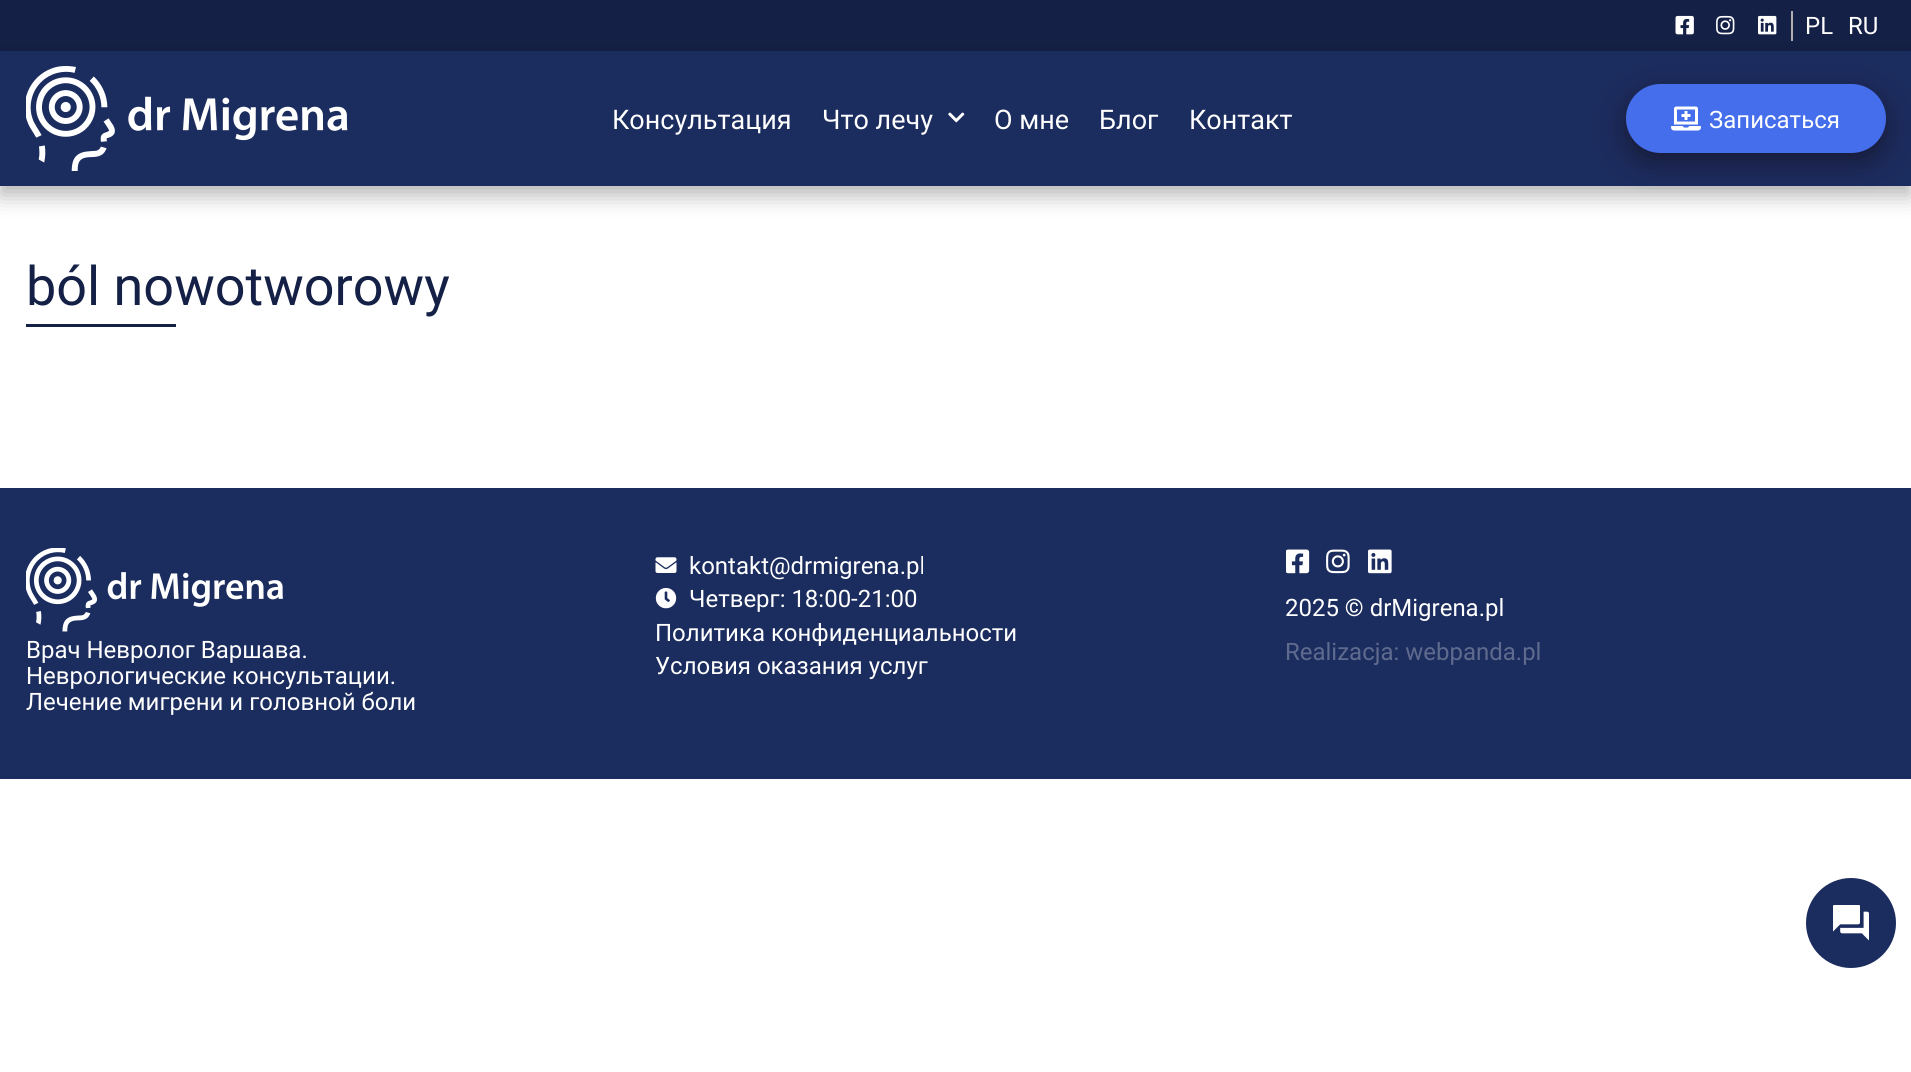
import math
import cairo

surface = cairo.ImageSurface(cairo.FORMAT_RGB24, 1911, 1072)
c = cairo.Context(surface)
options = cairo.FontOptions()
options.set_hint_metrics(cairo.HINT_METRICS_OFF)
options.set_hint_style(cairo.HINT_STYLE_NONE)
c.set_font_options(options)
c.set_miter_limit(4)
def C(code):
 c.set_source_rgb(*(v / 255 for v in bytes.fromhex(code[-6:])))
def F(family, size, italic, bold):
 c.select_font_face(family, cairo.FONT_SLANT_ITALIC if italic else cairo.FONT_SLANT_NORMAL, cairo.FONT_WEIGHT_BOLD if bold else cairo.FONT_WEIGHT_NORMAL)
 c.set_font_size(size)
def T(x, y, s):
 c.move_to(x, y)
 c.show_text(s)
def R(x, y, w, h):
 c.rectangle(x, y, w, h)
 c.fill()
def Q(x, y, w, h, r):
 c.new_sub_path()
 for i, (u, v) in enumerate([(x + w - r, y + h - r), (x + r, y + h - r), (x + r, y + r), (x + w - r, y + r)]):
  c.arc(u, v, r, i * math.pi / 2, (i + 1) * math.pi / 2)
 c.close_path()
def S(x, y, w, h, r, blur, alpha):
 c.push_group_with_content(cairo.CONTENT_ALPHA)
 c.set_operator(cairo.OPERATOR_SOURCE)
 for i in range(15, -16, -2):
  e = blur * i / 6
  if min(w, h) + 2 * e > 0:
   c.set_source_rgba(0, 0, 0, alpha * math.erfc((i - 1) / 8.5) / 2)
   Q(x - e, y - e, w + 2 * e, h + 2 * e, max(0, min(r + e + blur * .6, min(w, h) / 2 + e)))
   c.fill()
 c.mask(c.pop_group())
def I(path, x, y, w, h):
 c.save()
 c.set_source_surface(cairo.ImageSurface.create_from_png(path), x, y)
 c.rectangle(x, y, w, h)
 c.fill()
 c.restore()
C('ffffff')
c.paint()
C('142045')
R(0,0,1911,51)
I('1.png',1675,15,19,20)
I('2.png',1716,15,19,20)
I('3.png',1758,15,19,20)
C('b1b1b1')
R(1791,11,2,30)
F('Roboto',24,0,0)
C('ffffff')
T(1805,34,'PL')
T(1848,34,'RU')
C('000000')
S(0,60,1911,135,0,11,.3)
C('1b2c5e')
R(0,51,1911,135)
I('4.png',26,66,322,105)
F('Roboto',27,0,0)
C('ffffff')
T(612,129,'Консультация')
T(822,129,'Что лечу')
I('5.png',948,112,17,11)
T(994,129,'О мне')
T(1099,129,'Блог')
T(1189,129,'Контакт')
C('17142b')
S(1631,98,250,60,30,15,1)
C('446eeb')
Q(1626,84,260,69,34.5)
c.fill()
I('6.png',1671,106,30,25)
F('Roboto',24,0,0)
C('ffffff')
T(1709,128,'Записаться')
F('Roboto',54,0,0)
C('142045')
T(26,305,'ból nowotworowy')
R(26,324,150,3)
C('1b2c5e')
R(0,488,1911,291)
I('7.png',655,557,22,16)
F('Roboto',24,0,0)
C('ffffff')
T(689,574,'kontakt@drmigrena.pl')
I('8.png',655,588,22,21)
T(689,607,'Четверг: 18:00-21:00')
T(655,641,'Политика конфиденциальности')
T(655,674,'Условия оказания услуг')
I('9.png',1286,549,24,25)
I('10.png',1326,549,24,25)
I('11.png',1368,549,24,25)
T(1285,616,'2025 © drMigrena.pl')
C('5f6b8e')
T(1285,660,'Realizacja: webpanda.pl')
I('12.png',26,548,257,84)
C('ffffff')
T(26,658,'Врач Невролог Варшава.')
T(26,684,'Неврологические консультации.')
T(26,710,'Лечение мигрени и головной боли')
C('1b2c5e')
c.new_path()
c.arc(1851,923,45,0,2 * math.pi)
c.fill()
I('13.png',1833,905,36,36)
surface.write_to_png('o.png')
